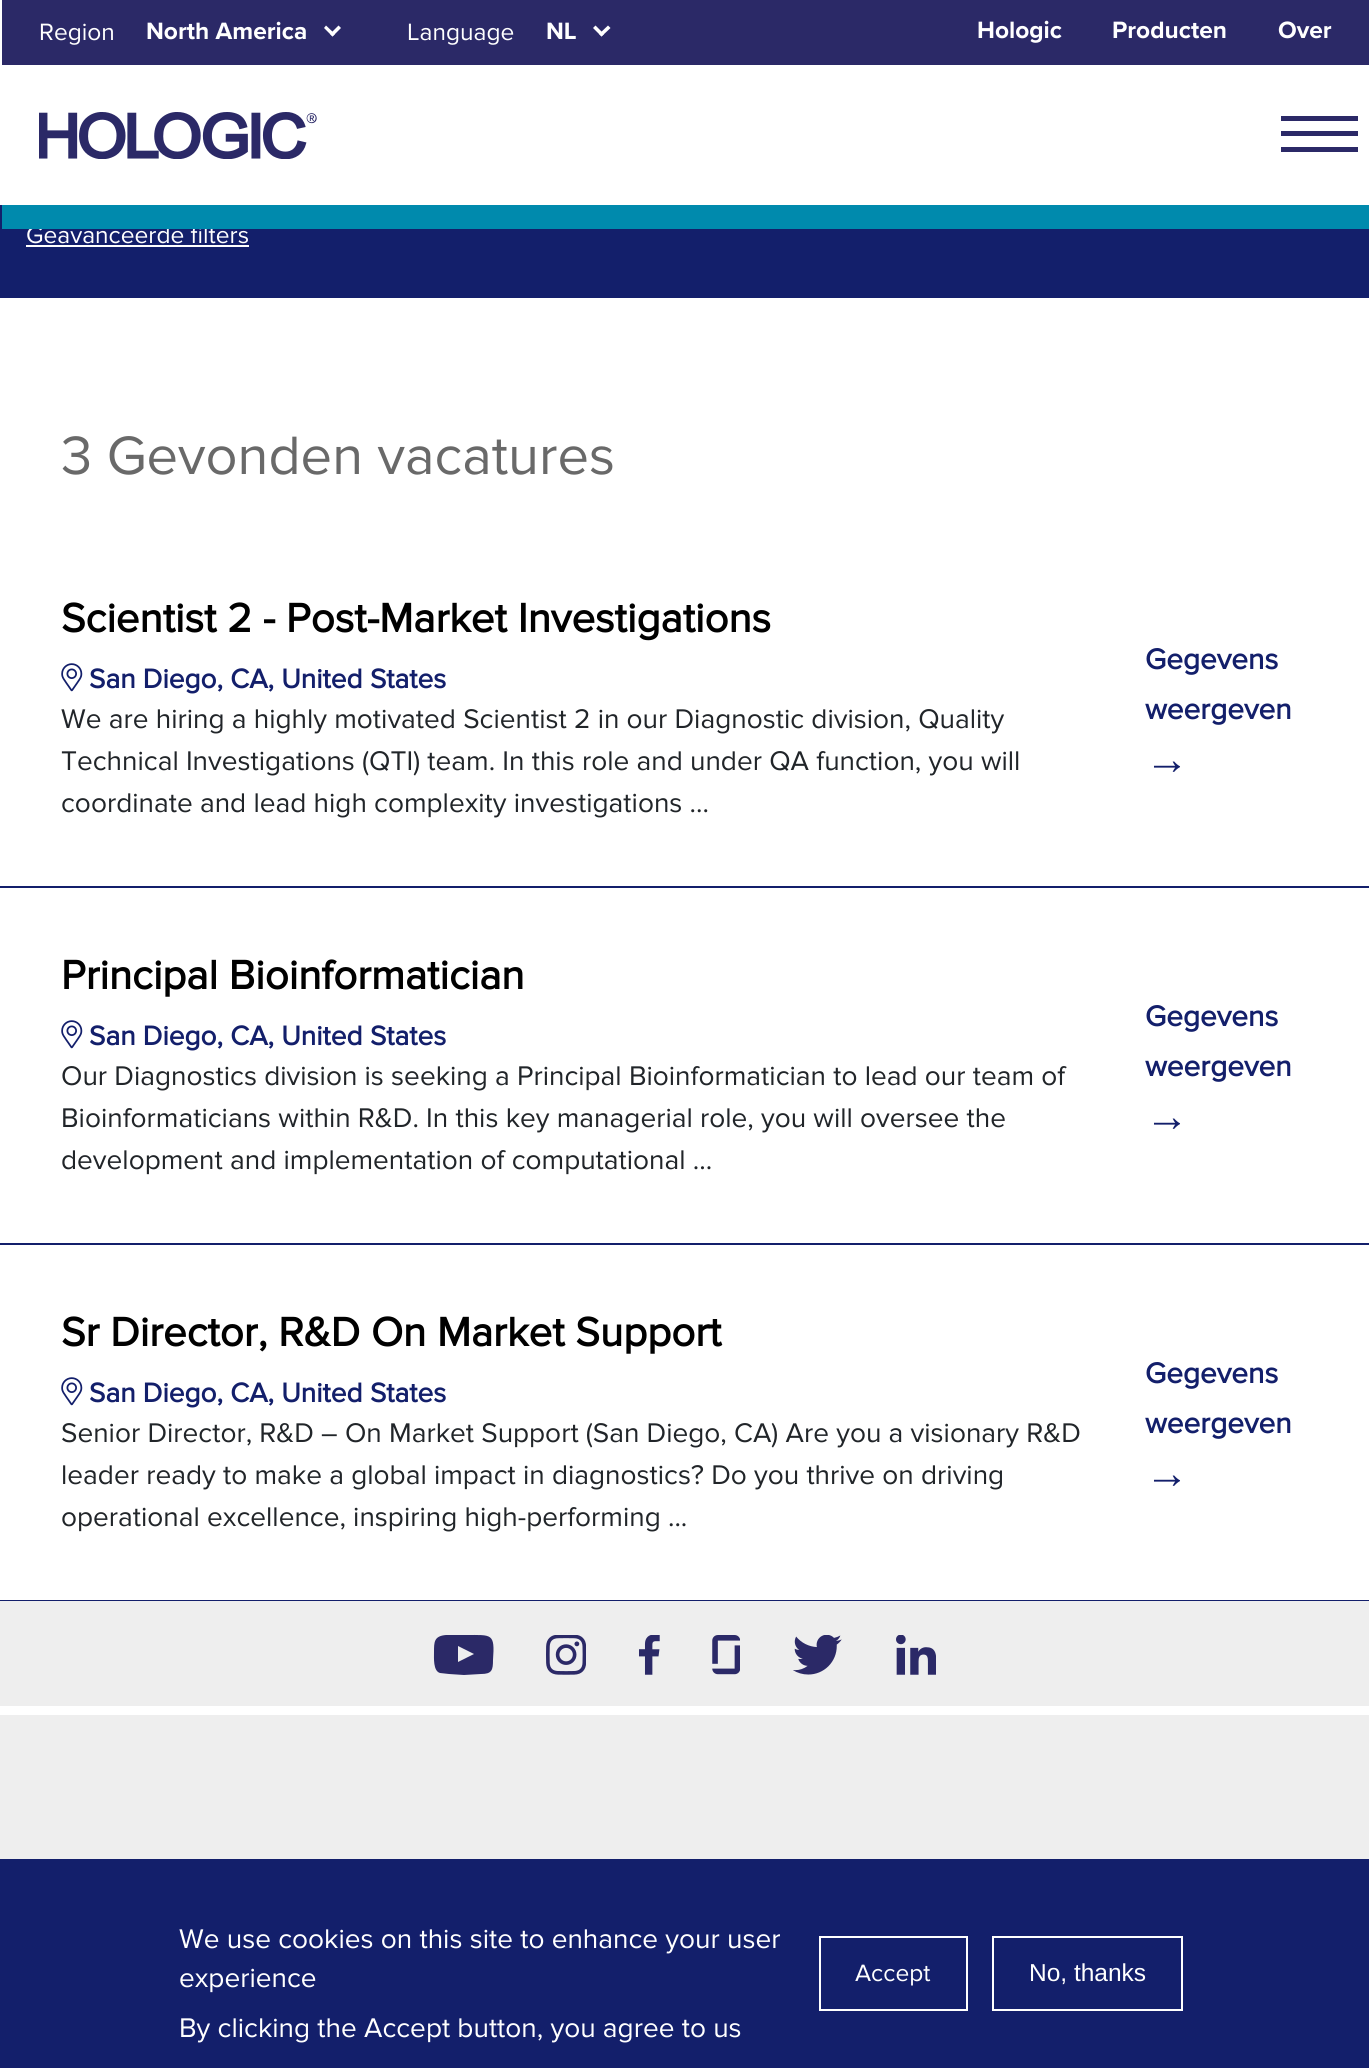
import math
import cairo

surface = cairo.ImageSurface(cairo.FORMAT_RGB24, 1369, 2068)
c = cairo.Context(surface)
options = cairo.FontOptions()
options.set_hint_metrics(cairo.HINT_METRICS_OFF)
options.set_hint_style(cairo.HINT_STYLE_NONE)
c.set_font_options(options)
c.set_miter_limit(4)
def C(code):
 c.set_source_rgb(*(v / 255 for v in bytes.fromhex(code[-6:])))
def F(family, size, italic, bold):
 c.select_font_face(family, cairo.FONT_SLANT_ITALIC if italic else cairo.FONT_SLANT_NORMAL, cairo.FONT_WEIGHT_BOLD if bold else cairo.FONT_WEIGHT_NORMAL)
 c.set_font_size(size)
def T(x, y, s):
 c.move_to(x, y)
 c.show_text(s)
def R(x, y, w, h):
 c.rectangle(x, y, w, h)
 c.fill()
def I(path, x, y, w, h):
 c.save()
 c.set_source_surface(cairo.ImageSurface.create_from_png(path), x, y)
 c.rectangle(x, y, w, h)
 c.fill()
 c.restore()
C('ffffff')
c.paint()
C('2b2967')
R(2,0,1367,65)
F('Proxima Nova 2',24.5,0,0)
C('ffffff')
T(39,40,'Region')
F('Proxima Nova 2',24.5,0,1)
T(146,39,'North America')
c.new_path()
c.move_to(338.5,25.5)
c.line_to(341,28)
c.line_to(332.5,36.5)
c.line_to(330,34)
c.close_path()
c.fill()
c.new_path()
c.move_to(326,25.5)
c.line_to(335,34)
c.line_to(332.5,36.5)
c.line_to(324,28)
c.close_path()
c.fill()
F('Proxima Nova 2',24.5,0,0)
T(407,40,'Language')
F('Proxima Nova 2',24.5,0,1)
T(546,39,'NL')
c.new_path()
c.move_to(608,25.5)
c.line_to(610.5,28)
c.line_to(601.5,36.5)
c.line_to(599,34)
c.close_path()
c.fill()
c.new_path()
c.move_to(595.5,25.5)
c.line_to(604,34)
c.line_to(601.5,36.5)
c.line_to(593,28)
c.close_path()
c.fill()
T(977,38,'Hologic')
T(1112,38,'Producten')
T(1278,38,'Over')
I('1.png',39,112,278,47)
C('2b2967')
R(1281,116,77,5)
R(1281,131,77,5)
R(1281,147,77,5)
C('131f6b')
R(0,205,1369,93)
F('Proxima Nova',24.5,0,0)
C('ffffff')
T(26,243,'Geavanceerde filters')
C('008aad')
R(2,205,1367,24)
C('ffffff')
R(26,245,223,2)
F('Proxima Nova',56,0,0)
C('696969')
T(61,474,'3 Gevonden vacatures')
C('131f6b')
R(0,886,1369,2)
F('Proxima Nova',42,0,1)
C('000000')
T(61,632,'Scientist 2 - Post-Market Investigations')
I('2.png',61,663,22,29)
F('Proxima Nova',28,0,1)
C('131f6b')
T(89,688,'San Diego, CA, United States')
F('Proxima Nova',28,0,0)
C('212529')
T(61,728,'We are hiring a highly motivated Scientist 2 in our Diagnostic division, Quality')
T(61,770,'Technical Investigations (QTI) team. In this role and under QA function, you will')
T(61,812,'coordinate and lead high complexity investigations ...')
F('Proxima Nova',29.75,0,1)
C('131f6b')
T(1145,669,'Gegevens')
T(1145,719,'weergeven')
F('Liberation Sans',44,0,0)
T(1145,774,'→')
R(0,1243,1369,2)
F('Proxima Nova',42,0,1)
C('000000')
T(61,989,'Principal Bioinformatician')
I('2.png',61,1020,22,29)
F('Proxima Nova',28,0,1)
C('131f6b')
T(89,1045,'San Diego, CA, United States')
F('Proxima Nova',28,0,0)
C('212529')
T(61,1085,'Our Diagnostics division is seeking a Principal Bioinformatician to lead our team of')
T(61,1127,'Bioinformaticians within R&D. In this key managerial role, you will oversee the')
T(61,1169,'development and implementation of computational ...')
F('Proxima Nova',29.75,0,1)
C('131f6b')
T(1145,1026,'Gegevens')
T(1145,1076,'weergeven')
F('Liberation Sans',44,0,0)
T(1145,1131,'→')
R(0,1600,1369,1)
F('Proxima Nova',42,0,1)
C('000000')
T(61,1346,'Sr Director, R&D On Market Support')
I('2.png',61,1377,22,29)
F('Proxima Nova',28,0,1)
C('131f6b')
T(89,1402,'San Diego, CA, United States')
F('Proxima Nova',28,0,0)
C('212529')
T(61,1442,'Senior Director, R&D – On Market Support (San Diego, CA) Are you a visionary R&D')
T(61,1484,'leader ready to make a global impact in diagnostics? Do you thrive on driving')
T(61,1526,'operational excellence, inspiring high-performing ...')
F('Proxima Nova',29.75,0,1)
C('131f6b')
T(1145,1383,'Gegevens')
T(1145,1433,'weergeven')
F('Liberation Sans',44,0,0)
T(1145,1488,'→')
C('eeeeee')
R(0,1601,1369,258)
C('2b2967')
c.new_path()
c.move_to(464,1675)
c.line_to(449,1674)
c.line_to(440,1673)
c.curve_to(433,1671,434,1658,434,1652)
c.curve_to(434,1642,434,1636,446,1635)
c.line_to(466,1635)
c.curve_to(492,1635,495,1633,493,1660)
c.curve_to(493,1670,492,1674,481,1674)
c.close_path()
c.move_to(458,1646)
c.line_to(458,1662)
c.line_to(474,1654)
c.close_path()
c.fill()
I('3.png',546,1635,40,40)
I('4.png',639,1635,21,40)
I('5.png',712,1635,28,40)
I('6.png',793,1635,49,40)
I('7.png',896,1635,40,40)
C('ffffff')
R(0,1706,1369,9)
C('131f6b')
R(0,1859,1369,209)
F('Proxima Nova',28,0,0)
C('ffffff')
T(179,1948,'We use cookies on this site to enhance your user')
T(179,1987,'experience')
T(179,2037,'By clicking the Accept button, you agree to us')
c.rectangle(820,1937,147,73)
c.stroke()
F('Proxima Nova',24.5,0,0)
T(855,1981,'Accept')
c.rectangle(993,1937,189,73)
c.stroke()
F('Liberation Sans',24.5,0,0)
T(1029,1981,'No, thanks')
surface.write_to_png('o.png')
